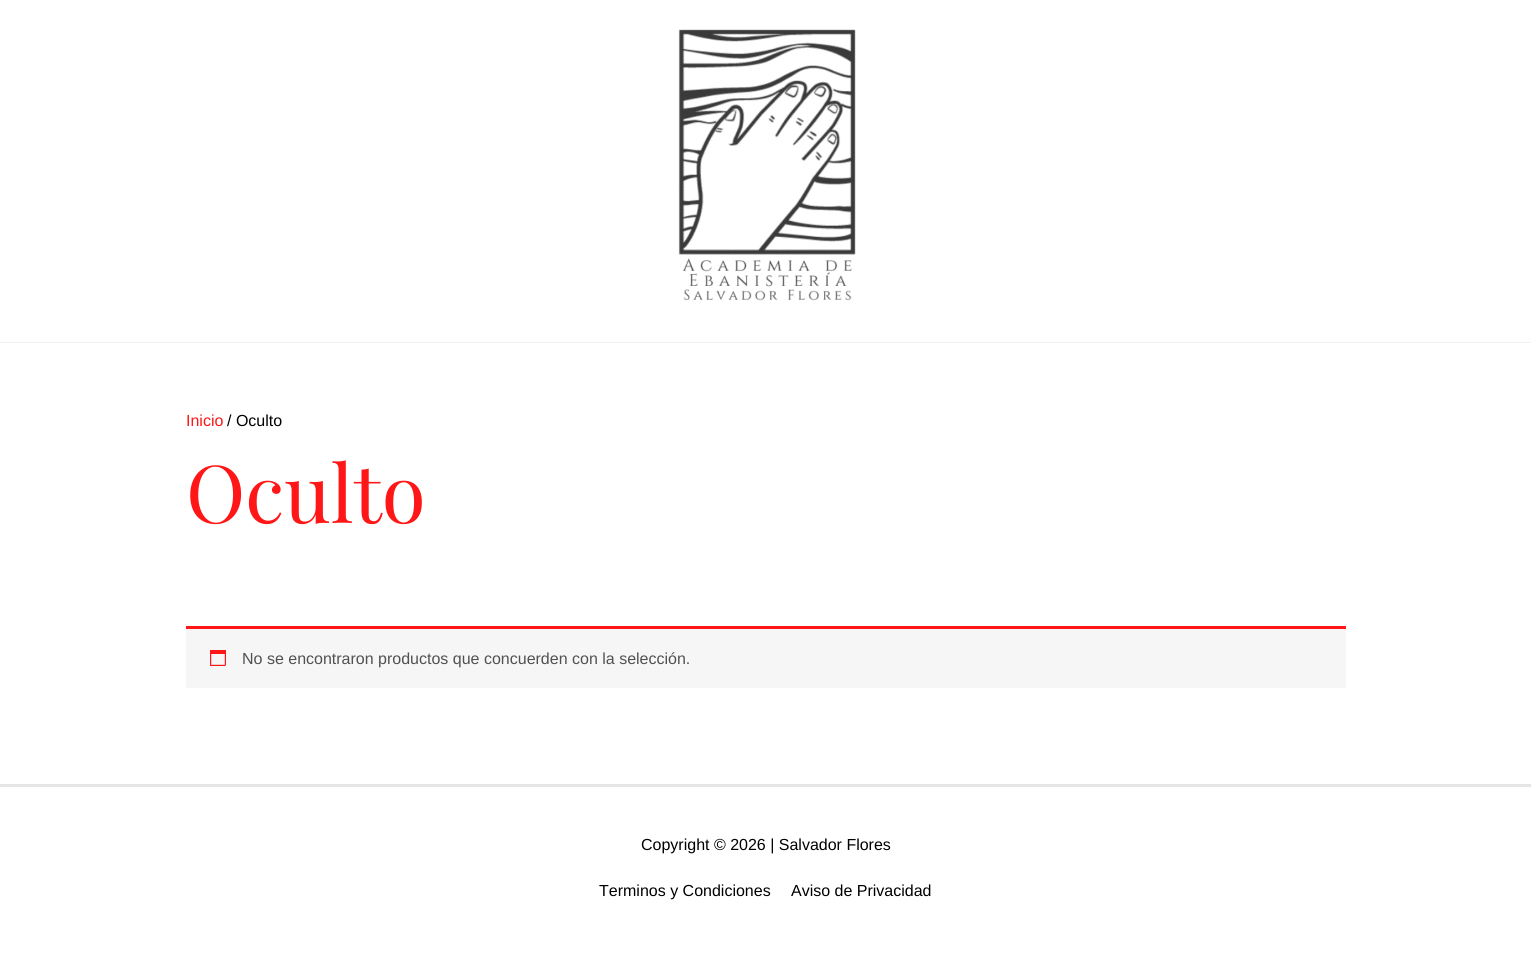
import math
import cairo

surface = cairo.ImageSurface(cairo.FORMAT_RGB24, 1531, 975)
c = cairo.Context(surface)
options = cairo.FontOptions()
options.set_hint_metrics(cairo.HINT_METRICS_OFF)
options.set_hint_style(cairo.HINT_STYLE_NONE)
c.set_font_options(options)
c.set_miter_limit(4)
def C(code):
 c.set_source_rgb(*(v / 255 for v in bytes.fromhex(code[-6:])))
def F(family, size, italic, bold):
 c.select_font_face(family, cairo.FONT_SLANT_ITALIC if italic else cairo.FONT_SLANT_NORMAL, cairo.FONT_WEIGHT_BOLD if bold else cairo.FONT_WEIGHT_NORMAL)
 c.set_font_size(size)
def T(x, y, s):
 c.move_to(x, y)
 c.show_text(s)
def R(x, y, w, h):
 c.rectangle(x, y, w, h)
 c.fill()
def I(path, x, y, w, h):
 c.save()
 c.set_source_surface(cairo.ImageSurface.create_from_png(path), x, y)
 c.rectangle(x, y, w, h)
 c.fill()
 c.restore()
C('ffffff')
c.paint()
C('f1f2f2')
R(0,342,1531,1)
I('1.png',678,29,178,272)
F('Liberation Sans',16,0,0)
C('ff1616')
T(186,426,'Inicio')
C('000000')
T(227,426,'/ Oculto')
F('Playfair Display',80,0,0)
C('ff1616')
T(186,523,'Oculto')
C('f7f6f7')
R(186,629,1160,59)
C('ff1616')
R(186,626,1160,3)
I('2.png',210,650,16,16)
F('Liberation Sans',16,0,0)
C('515151')
T(242,664,'No se encontraron productos que concuerden con la selección.')
C('e5e5e5')
R(0,784,1531,3)
C('000000')
T(641,850,'Copyright © 2026 | Salvador Flores')
T(599,896,'Terminos y Condiciones')
T(791,896,'Aviso de Privacidad')
surface.write_to_png('o.png')
